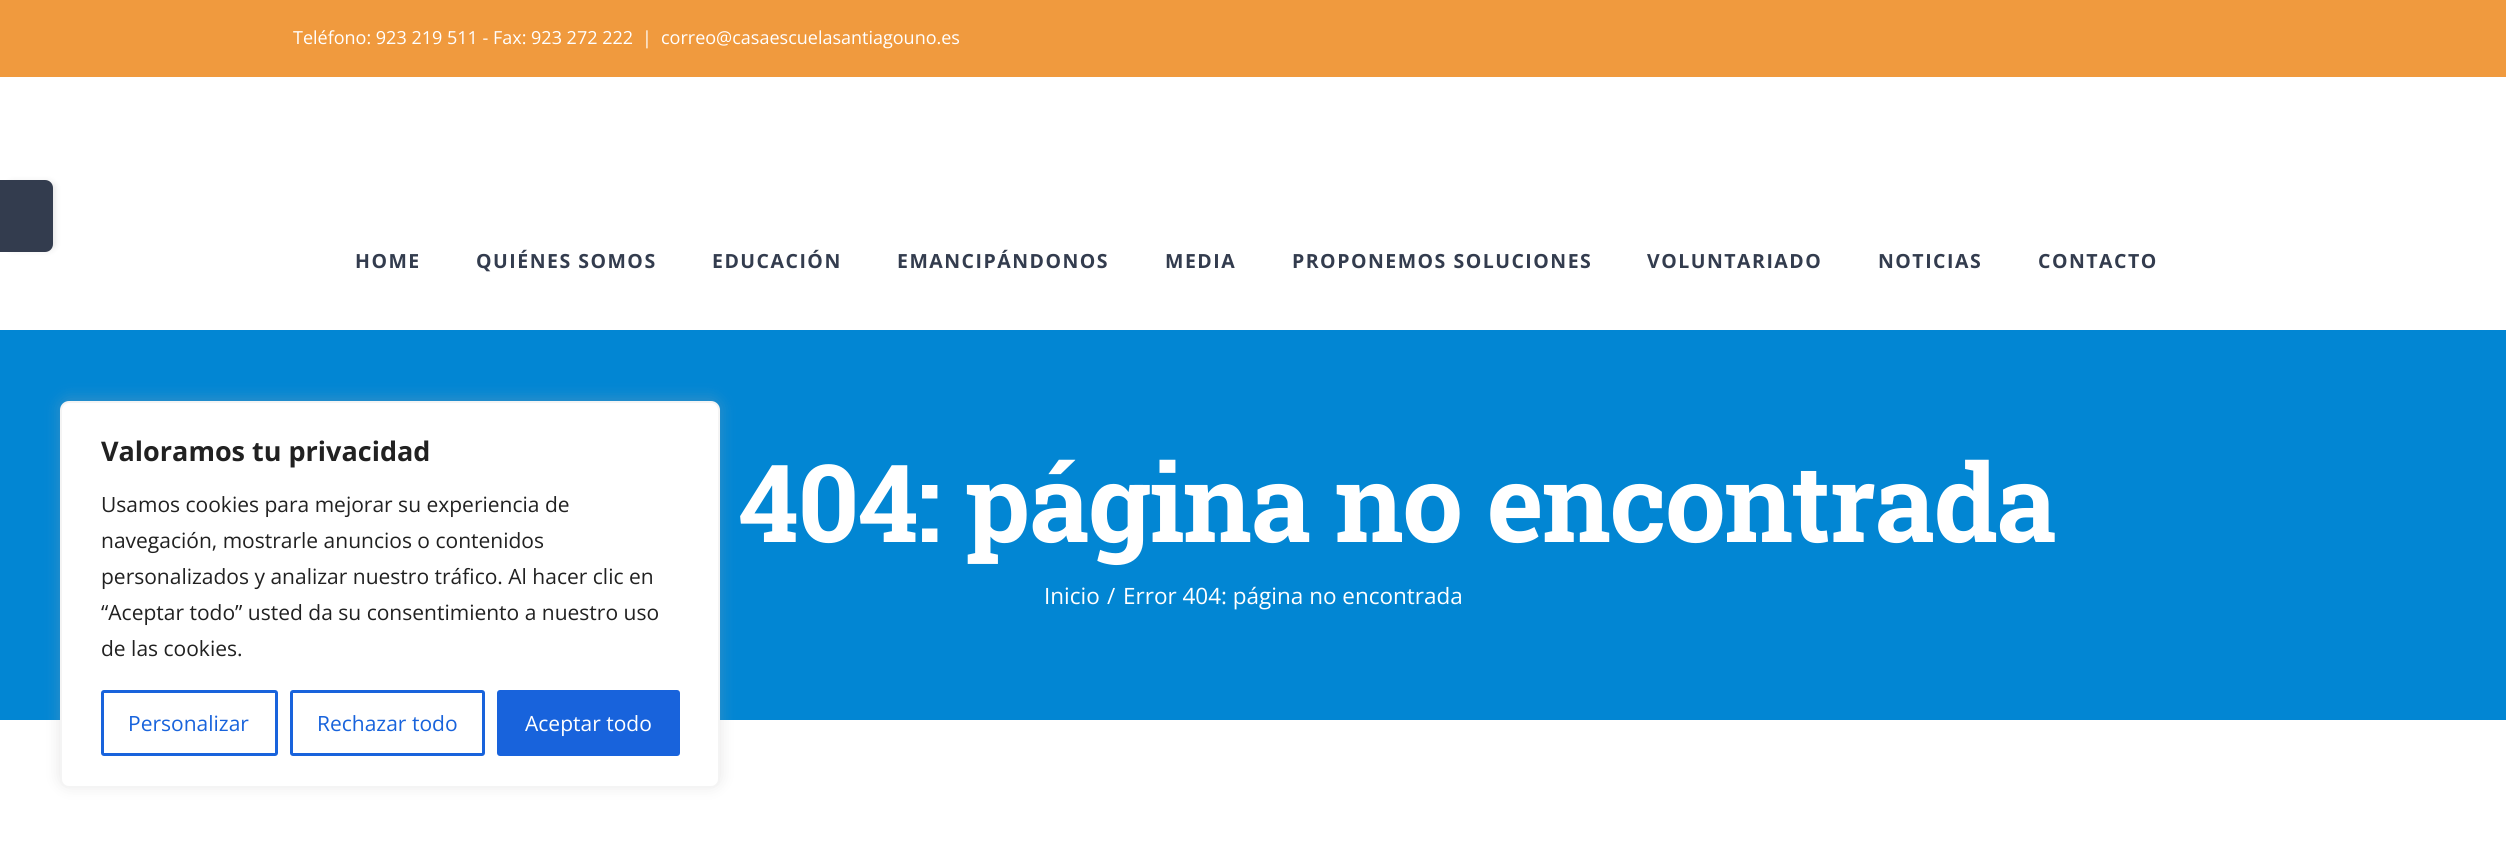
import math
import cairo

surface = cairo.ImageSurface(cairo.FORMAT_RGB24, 2506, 847)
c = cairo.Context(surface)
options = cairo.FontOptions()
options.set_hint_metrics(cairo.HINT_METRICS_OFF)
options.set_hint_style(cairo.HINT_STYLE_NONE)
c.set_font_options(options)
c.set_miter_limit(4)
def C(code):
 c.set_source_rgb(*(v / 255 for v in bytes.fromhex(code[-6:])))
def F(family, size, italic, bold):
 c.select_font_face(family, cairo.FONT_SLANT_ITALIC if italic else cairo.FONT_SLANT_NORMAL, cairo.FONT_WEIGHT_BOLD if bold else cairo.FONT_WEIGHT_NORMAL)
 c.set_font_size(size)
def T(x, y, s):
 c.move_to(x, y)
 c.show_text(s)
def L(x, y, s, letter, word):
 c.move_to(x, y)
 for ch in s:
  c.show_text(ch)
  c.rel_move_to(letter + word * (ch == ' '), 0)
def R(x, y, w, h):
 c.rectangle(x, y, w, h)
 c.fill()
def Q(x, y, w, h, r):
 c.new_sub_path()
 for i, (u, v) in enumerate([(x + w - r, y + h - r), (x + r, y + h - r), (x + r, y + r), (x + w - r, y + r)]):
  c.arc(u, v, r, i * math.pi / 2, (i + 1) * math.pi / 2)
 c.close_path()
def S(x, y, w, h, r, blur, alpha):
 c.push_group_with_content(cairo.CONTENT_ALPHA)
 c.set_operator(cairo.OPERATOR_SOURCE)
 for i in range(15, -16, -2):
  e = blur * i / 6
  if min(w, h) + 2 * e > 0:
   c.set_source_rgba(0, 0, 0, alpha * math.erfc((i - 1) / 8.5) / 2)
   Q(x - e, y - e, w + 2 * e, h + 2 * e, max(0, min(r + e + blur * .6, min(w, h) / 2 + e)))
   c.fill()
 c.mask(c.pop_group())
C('ffffff')
c.paint()
C('000000')
S(8,183,46,66,5,4,.14)
C('333c4e')
c.new_path()
c.move_to(0,180)
c.line_to(45,180)
c.curve_to(49.5,180,53,183.5,53,188)
c.line_to(53,244)
c.curve_to(53,248.5,49.5,252,45,252)
c.line_to(0,252)
c.close_path()
c.fill()
C('f09a3e')
R(0,0,2506,77)
F('Open Sans',18,0,0)
C('ffffff')
T(293,44,'Teléfono: 923 219 511 - Fax: 923 272 222')
T(642,44,'|')
T(661,44,'correo@casaescuelasantiagouno.es')
F('Open Sans',19.5,0,1)
C('333c4e')
L(355,268,'HOME',1.5,0)
L(476,268,'QUIÉNES SOMOS',1.5,0)
L(712,268,'EDUCACIÓN',1.5,0)
L(897,268,'EMANCIPÁNDONOS',1.5,0)
L(1165,268,'MEDIA',1.5,0)
L(1292,268,'PROPONEMOS SOLUCIONES',1.5,0)
L(1647,268,'VOLUNTARIADO',1.5,0)
L(1878,268,'NOTICIAS',1.5,0)
L(2038,268,'CONTACTO',1.5,0)
C('0286d3')
R(0,330,2506,390)
F('Roboto Slab',108,0,1)
C('ffffff')
L(738,542,'404: página no encontrada',-1.5,0)
F('Open Sans',22.5,0,0)
T(1044,604,'Inicio')
T(1107,604,'/')
T(1123,604,'Error 404: página no encontrada')
C('acabab')
S(60,399,660,387,9,7.5,.3)
C('ffffff')
Q(61,402,658,385,8)
c.fill_preserve()
C('f4f4f4')
c.stroke()
F('Open Sans',27,0,1)
C('212121')
T(101,461,'Valoramos tu privacidad')
F('Open Sans',21,0,0)
T(101,512,'Usamos cookies para mejorar su experiencia de')
T(101,548,'navegación, mostrarle anuncios o contenidos')
T(101,584,'personalizados y analizar nuestro tráfico. Al hacer clic en')
T(101,620,'“Aceptar todo” usted da su consentimiento a nuestro uso')
T(101,656,'de las cookies.')
Q(102.5,691.5,174,63,1.5)
C('1863dc')
c.set_line_width(3)
c.stroke()
T(128,731,'Personalizar')
Q(291.5,691.5,192,63,1.5)
c.stroke()
T(317,731,'Rechazar todo')
Q(498.5,691.5,180,63,1.5)
c.fill_preserve()
c.stroke()
C('ffffff')
T(525,731,'Aceptar todo')
surface.write_to_png('o.png')
